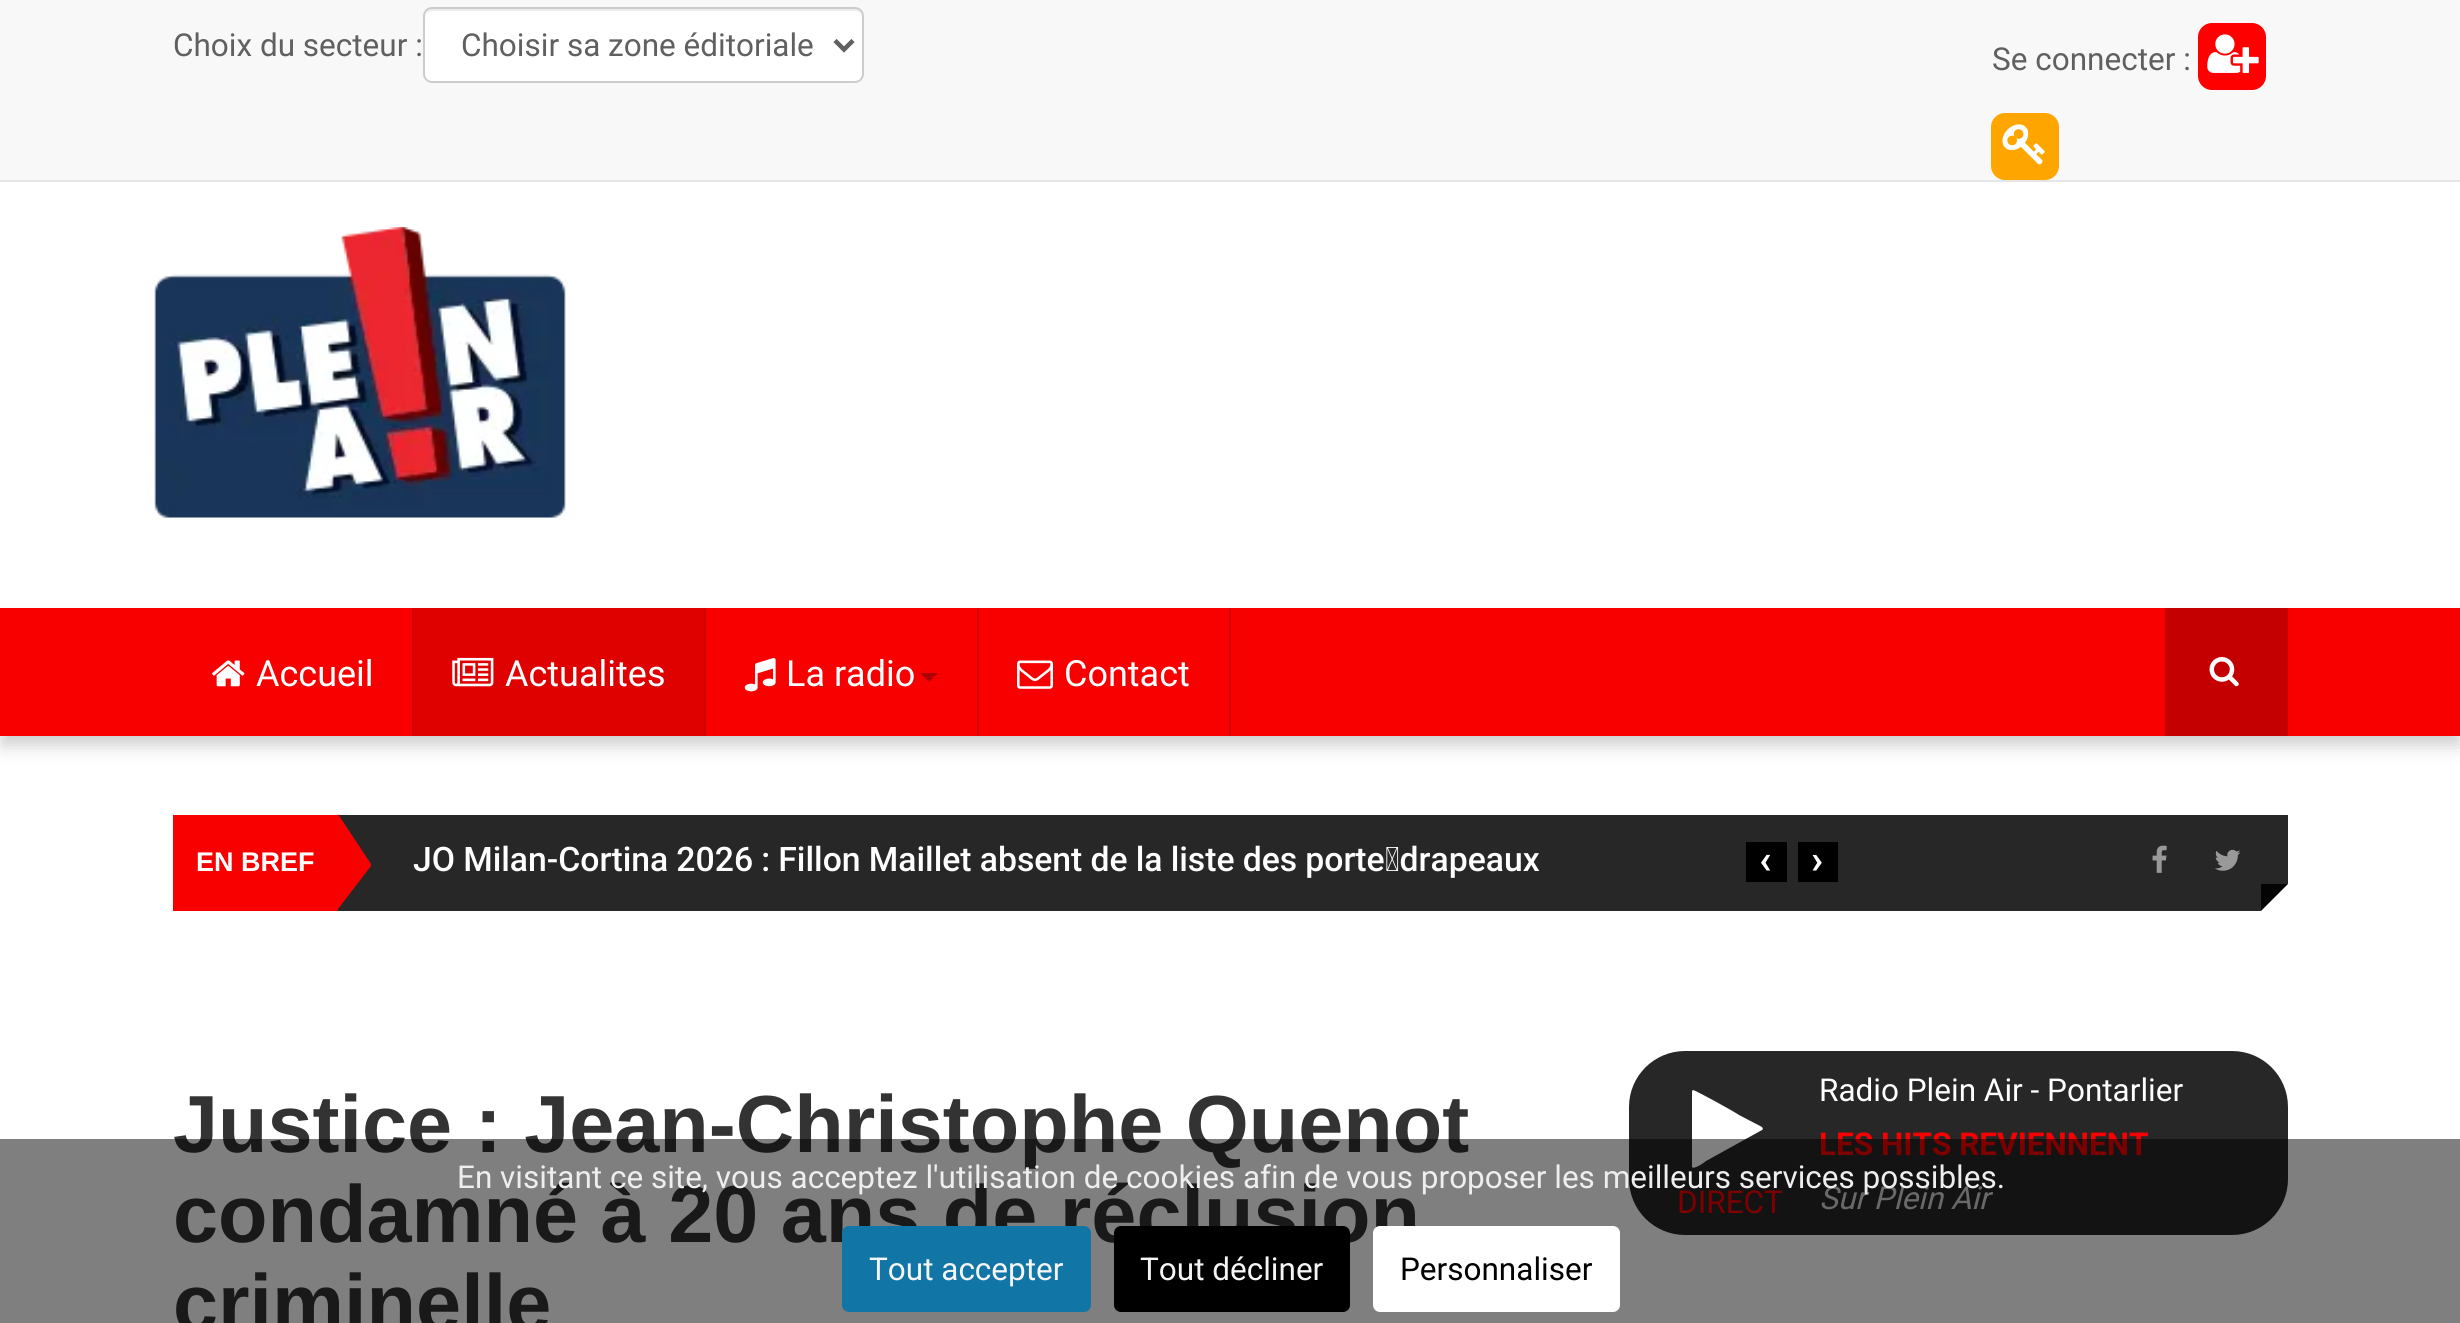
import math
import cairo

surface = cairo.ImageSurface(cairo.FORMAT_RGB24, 2460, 1323)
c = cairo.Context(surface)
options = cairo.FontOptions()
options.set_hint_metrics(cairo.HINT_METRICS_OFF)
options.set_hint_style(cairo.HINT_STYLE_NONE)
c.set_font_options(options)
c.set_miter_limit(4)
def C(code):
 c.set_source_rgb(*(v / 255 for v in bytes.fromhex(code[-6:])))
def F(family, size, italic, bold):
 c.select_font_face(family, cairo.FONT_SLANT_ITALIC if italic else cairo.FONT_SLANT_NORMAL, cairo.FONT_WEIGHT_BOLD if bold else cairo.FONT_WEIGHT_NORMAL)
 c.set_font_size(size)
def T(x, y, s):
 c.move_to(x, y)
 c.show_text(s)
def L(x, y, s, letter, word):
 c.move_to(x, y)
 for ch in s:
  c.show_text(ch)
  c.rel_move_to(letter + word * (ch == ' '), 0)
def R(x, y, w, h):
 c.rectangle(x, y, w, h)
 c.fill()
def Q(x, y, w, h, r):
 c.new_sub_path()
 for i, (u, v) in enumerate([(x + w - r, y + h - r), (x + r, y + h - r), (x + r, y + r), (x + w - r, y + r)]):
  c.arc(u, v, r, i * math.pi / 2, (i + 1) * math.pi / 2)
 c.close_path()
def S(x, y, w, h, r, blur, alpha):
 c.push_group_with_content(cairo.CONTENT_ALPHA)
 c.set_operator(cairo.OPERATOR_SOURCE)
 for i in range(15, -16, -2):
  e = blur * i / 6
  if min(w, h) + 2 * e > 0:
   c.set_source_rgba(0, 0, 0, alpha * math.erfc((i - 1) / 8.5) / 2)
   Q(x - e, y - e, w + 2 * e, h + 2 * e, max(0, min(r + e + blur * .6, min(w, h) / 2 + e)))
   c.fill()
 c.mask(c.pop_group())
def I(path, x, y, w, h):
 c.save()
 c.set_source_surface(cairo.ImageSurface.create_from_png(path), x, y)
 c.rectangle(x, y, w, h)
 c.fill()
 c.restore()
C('ffffff')
c.paint()
C('f8f8f8')
R(0,0,2460,180)
C('e5e5e5')
R(0,180,2460,2)
F('Roboto',31.5,0,0)
C('606060')
T(173,56,'Choix du secteur :')
C('ffffff')
Q(423,7,441,76,9)
c.fill()
C('ececec')
c.new_path()
c.move_to(432,11)
c.line_to(855,11)
c.curve_to(859,11,862,14,862,18)
c.curve_to(862,14,860,9,855,9)
c.line_to(432,9)
c.curve_to(427,9,425,14,425,18)
c.curve_to(425,14,428,11,432,11)
c.close_path()
c.fill()
Q(424,8,439,74,8)
C('cccccc')
c.stroke()
c.new_path()
c.move_to(835,40.5)
c.line_to(844,49.5)
c.line_to(853,40.5)
C('606060')
c.set_line_width(4.5)
c.stroke()
T(461,56,'Choisir sa zone éditoriale')
T(1992,70,'Se connecter :')
C('ff0000')
Q(2198,23,68,67,14)
c.fill()
I('1.png',2207,34,52,39)
C('ffa500')
Q(1991,113,68,67,14)
c.fill()
I('2.png',2002,124,43,41)
I('3.png',154,227,412,291)
C('000000')
S(2,621,2457,124,0,9,.2)
C('f80000')
R(0,608,2460,128)
C('d00000')
R(412,608,2,128)
I('4.png',212,660,33,27)
F('Roboto',36,0,0)
C('ffffff')
T(256,686,'Accueil')
C('d00000')
R(704,608,2,128)
C('df0000')
R(414,608,290,128)
I('5.png',452,657,42,30)
C('ffffff')
T(505,686,'Actualites')
C('d00000')
R(977,608,2,128)
I('6.png',744,658,32,34)
C('ffffff')
T(786,686,'La radio')
C('ae0000')
c.new_path()
c.move_to(920,673)
c.line_to(938,673)
c.line_to(929,682)
c.close_path()
c.fill()
C('d00000')
R(1229,608,2,128)
I('7.png',1017,660,36,29)
C('ffffff')
T(1064,686,'Contact')
C('c50000')
R(2165,608,123,128)
I('8.png',2209,657,30,30)
C('272727')
R(338,815,1950,96)
C('f80000')
R(173,815,165,96)
F('Liberation Sans',27,0,1)
C('ffffff')
T(196,871,'EN BREF')
C('f80000')
c.new_path()
c.move_to(338,909)
c.line_to(338,814)
c.line_to(371,864)
c.line_to(371,866)
c.close_path()
c.fill()
F('Roboto Medium',33.75,0,0)
C('ffffff')
L(413,871,'JO Milan-Cortina 2026 : Fillon Maillet absent de la liste des porte‑drapeaux',0,-.25)
C('000000')
R(1746,842,41,40)
F('Roboto',40,0,1)
C('ffffff')
T(1759,873,'‹')
C('000000')
R(1798,842,40,40)
C('ffffff')
T(1811,873,'›')
I('9.png',2152,845,15,28)
I('10.png',2215,849,26,22)
C('040404')
c.new_path()
c.move_to(2261,884)
c.line_to(2288,884)
c.line_to(2261,911)
c.close_path()
c.fill()
C('ffffff')
c.new_path()
c.move_to(2288,884)
c.line_to(2288,911)
c.line_to(2261,911)
c.close_path()
c.fill()
F('Liberation Sans',81,0,1)
C('333333')
T(173,1152,'Justice : Jean-Christophe Quenot')
T(173,1242,'condamné à 20 ans de réclusion')
T(173,1331,'criminelle')
C('272727')
Q(1629,1051,659,184,56)
c.fill()
C('ffffff')
c.new_path()
c.move_to(1762,1130)
c.line_to(1706,1161)
c.curve_to(1705,1162,1694,1170,1692,1167)
c.line_to(1692,1091)
c.line_to(1693,1090)
c.curve_to(1695,1090,1735,1112,1739,1115)
c.line_to(1762,1127)
c.line_to(1763,1129)
c.close_path()
c.fill()
F('Roboto',31.5,0,0)
C('f80000')
T(1677,1213,'DIRECT')
C('ffffff')
T(1819,1101,'Radio Plein Air - Pontarlier')
F('Roboto',31.5,0,1)
C('f80000')
T(1819,1155,'LES HITS REVIENNENT')
F('Roboto',31.5,1,0)
C('d3d3d3')
T(1819,1209,'Sur Plein Air')
c.set_source_rgba(0,0,0,0.5)
R(0,1139,2460,184)
F('Roboto',31.5,0,0)
C('eeeeee')
T(457,1188,'En visitant ce site, vous acceptez l\'utilisation de cookies afin de vous proposer les meilleurs services possibles.')
C('1176a6')
Q(844.5,1228.5,244,81,4.5)
c.fill_preserve()
c.set_line_width(5)
c.stroke()
C('f5f5f5')
T(869,1280,'Tout accepter')
C('000000')
Q(1116.5,1228.5,231,81,4.5)
c.fill_preserve()
c.stroke()
C('f5f5f5')
T(1140,1280,'Tout décliner')
C('ffffff')
Q(1375.5,1228.5,242,81,4.5)
c.fill_preserve()
c.stroke()
C('000000')
T(1400,1280,'Personnaliser')
surface.write_to_png('o.png')
